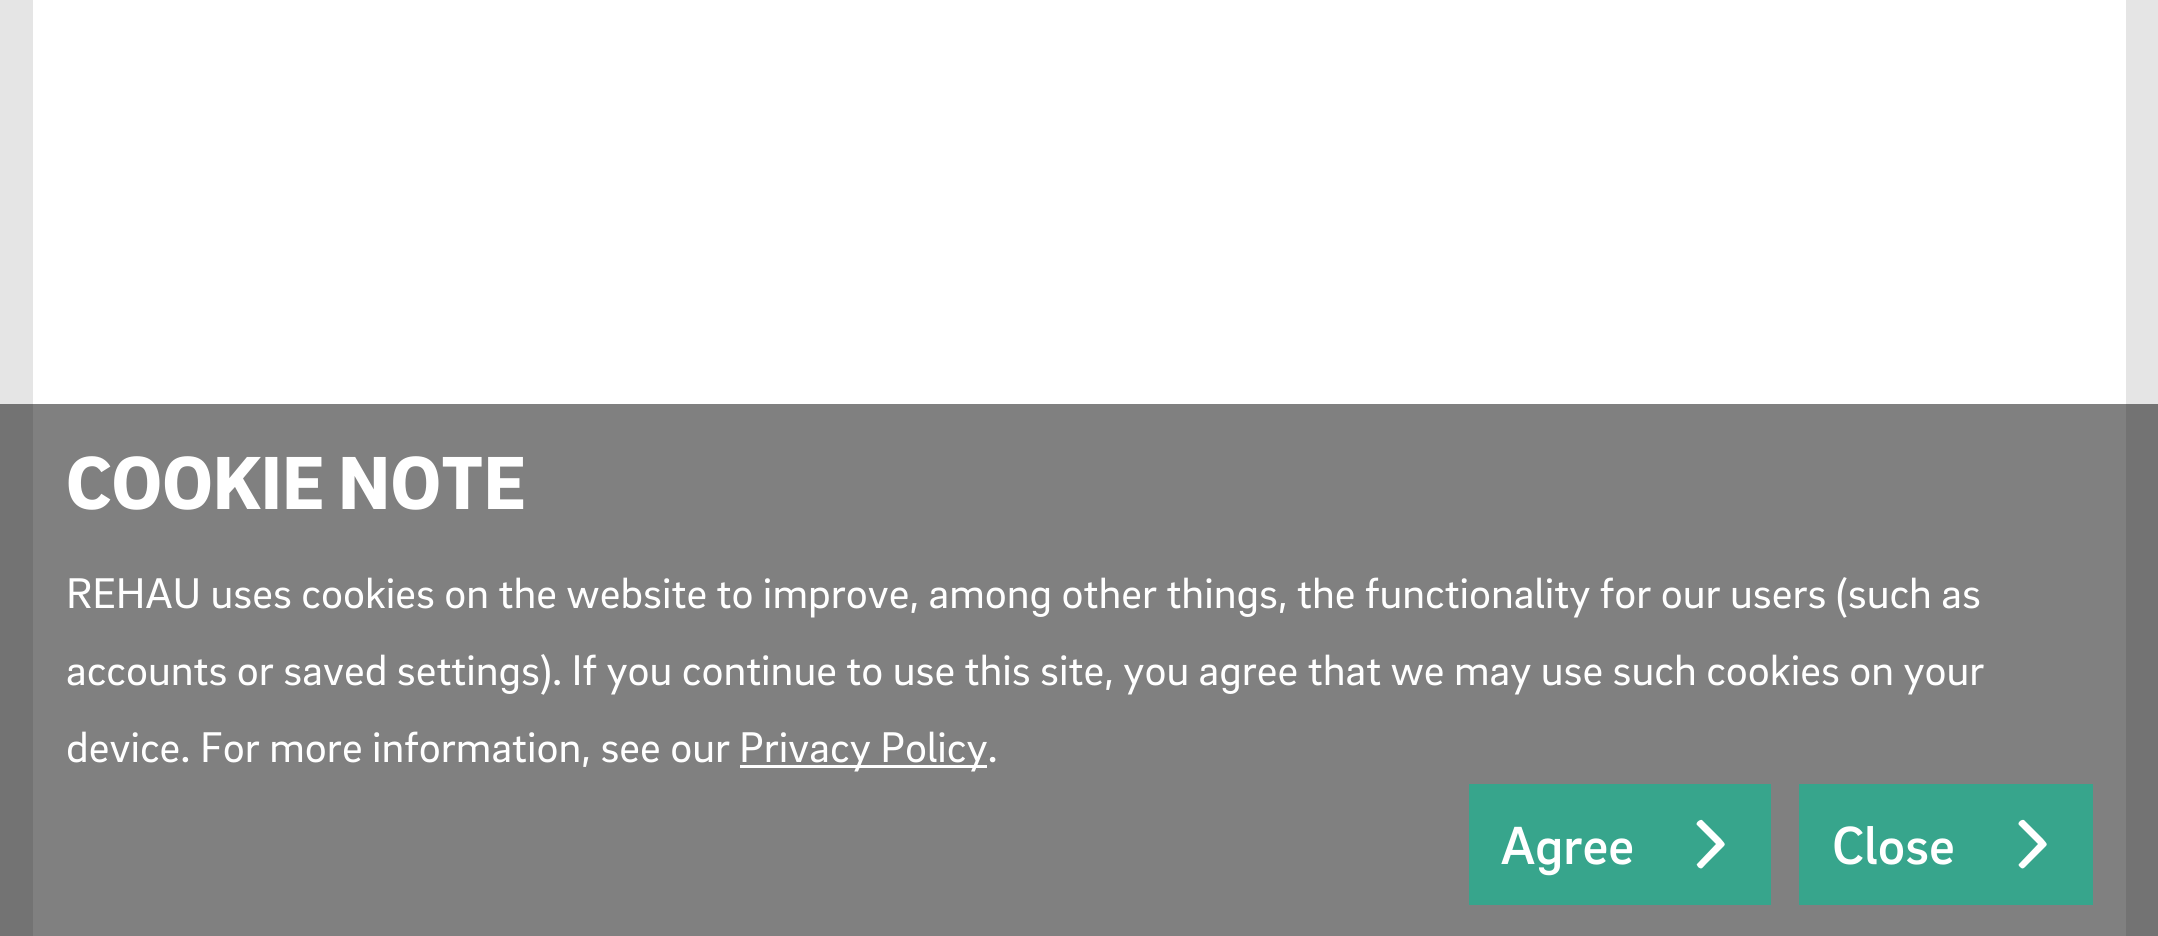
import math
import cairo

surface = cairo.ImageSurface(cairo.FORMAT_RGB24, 2158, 936)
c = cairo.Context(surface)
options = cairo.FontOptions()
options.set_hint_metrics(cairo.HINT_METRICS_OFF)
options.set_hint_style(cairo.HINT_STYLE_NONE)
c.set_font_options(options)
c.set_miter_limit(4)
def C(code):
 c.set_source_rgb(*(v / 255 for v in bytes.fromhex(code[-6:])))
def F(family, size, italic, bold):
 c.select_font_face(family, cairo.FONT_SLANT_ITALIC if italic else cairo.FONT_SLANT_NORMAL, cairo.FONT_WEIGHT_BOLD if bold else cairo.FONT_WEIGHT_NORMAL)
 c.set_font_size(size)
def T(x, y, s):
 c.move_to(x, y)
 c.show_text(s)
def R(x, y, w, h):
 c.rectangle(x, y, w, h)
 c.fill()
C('e5e5e5')
c.paint()
C('737373')
R(0,404,2158,532)
C('ffffff')
R(33,0,2093,404)
C('808080')
R(33,404,2093,532)
F('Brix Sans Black',77,0,0)
C('ffffff')
T(66,509,'COOKIE NOTE')
F('Brix Sans',44,0,0)
T(66,608,'REHAU uses cookies on the website to improve, among other things, the functionality for our users (such as')
T(66,685,'accounts or saved settings). If you continue to use this site, you agree that we may use such cookies on your')
T(66,762,'device. For more information, see our')
R(740,765,247,3)
T(739,762,'Privacy Policy.')
C('37a58c')
R(1469,784,302,121)
F('Brix Sans Medium',55,0,0)
C('ffffff')
T(1501,864,'Agree')
c.new_path()
c.move_to(1702,820)
c.curve_to(1700,819,1695,823,1697,825)
c.line_to(1716,844)
c.line_to(1697,864)
c.curve_to(1696,865,1698,866,1698,867)
c.curve_to(1702,870,1702,868,1706,864)
c.line_to(1721,849)
c.curve_to(1726,844,1726,845,1721,839)
c.close_path()
c.fill()
C('37a58c')
R(1799,784,294,121)
C('ffffff')
T(1832,864,'Close')
c.new_path()
c.move_to(2024,820)
c.curve_to(2021,819,2017,823,2019,825)
c.line_to(2038,844)
c.line_to(2019,864)
c.curve_to(2018,865,2019,866,2020,867)
c.curve_to(2023,870,2024,868,2028,864)
c.line_to(2043,849)
c.curve_to(2048,844,2048,845,2043,839)
c.close_path()
c.fill()
surface.write_to_png('o.png')
